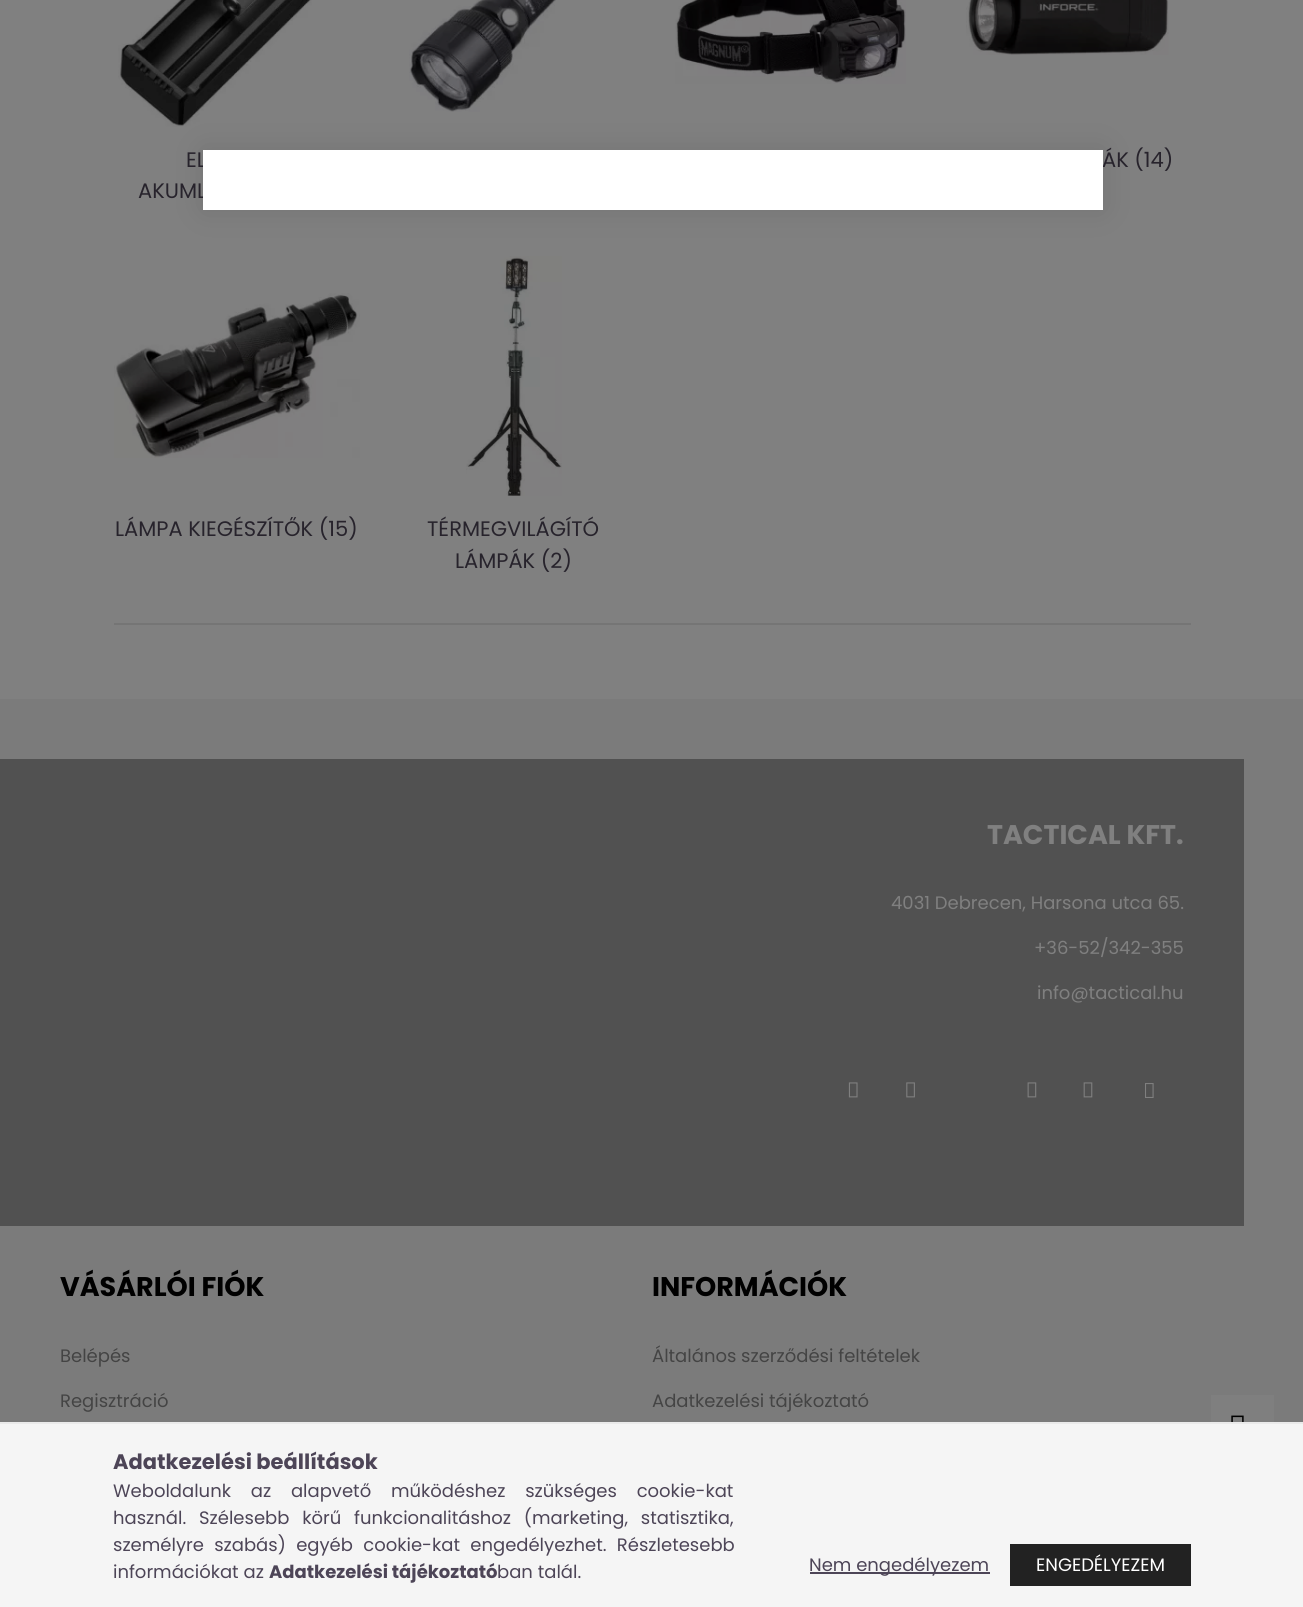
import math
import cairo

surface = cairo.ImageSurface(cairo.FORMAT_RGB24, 1303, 1607)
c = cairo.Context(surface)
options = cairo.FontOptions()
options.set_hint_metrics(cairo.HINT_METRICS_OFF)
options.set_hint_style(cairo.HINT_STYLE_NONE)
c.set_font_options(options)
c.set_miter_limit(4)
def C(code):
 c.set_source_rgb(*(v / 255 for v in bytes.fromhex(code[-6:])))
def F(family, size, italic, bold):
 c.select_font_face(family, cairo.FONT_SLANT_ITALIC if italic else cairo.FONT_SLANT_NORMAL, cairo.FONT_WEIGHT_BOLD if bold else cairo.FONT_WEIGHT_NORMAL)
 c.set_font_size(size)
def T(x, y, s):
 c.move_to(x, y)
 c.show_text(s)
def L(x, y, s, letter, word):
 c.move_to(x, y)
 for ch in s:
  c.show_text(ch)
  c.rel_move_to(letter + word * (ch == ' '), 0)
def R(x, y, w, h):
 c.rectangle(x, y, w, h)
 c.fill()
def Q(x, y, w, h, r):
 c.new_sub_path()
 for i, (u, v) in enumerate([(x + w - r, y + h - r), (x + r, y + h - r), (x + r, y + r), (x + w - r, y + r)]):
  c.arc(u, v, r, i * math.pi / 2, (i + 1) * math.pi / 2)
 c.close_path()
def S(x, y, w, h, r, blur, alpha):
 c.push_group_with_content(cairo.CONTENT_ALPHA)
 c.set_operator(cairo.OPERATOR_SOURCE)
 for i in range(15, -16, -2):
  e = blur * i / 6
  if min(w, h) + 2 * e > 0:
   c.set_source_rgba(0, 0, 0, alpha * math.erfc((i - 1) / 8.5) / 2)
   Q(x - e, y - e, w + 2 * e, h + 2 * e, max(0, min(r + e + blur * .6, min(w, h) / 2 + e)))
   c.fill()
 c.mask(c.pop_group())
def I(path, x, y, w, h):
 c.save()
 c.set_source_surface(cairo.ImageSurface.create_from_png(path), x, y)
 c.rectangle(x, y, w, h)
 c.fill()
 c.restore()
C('808080')
c.paint()
I('1.png',409,0,147,112)
I('3.png',118,0,194,127)
C('000000')
S(203,150,900,60,0,15,.1)
F('Poppins',21,0,0)
C('27232c')
T(186,167,'EL')
T(138,198,'AKUML')
T(1102,167,'ÁK (14)')
C('ffffff')
R(203,150,900,60)
C('757575')
R(114,623,1077,2)
I('2.png',675,0,231,84)
I('4.png',966,0,203,55)
I('5.png',114,293,246,165)
C('27232c')
T(115,536,'LÁMPA KIEGÉSZÍTŐK (15)')
I('6.png',466,256,96,240)
T(427,536,'TÉRMEGVILÁGÍTÓ')
T(455,568,'LÁMPÁK (2)')
C('7b7b7b')
R(0,699,1303,723)
C('515151')
R(0,759,1244,467)
F('Poppins',27,0,1)
C('808080')
T(987,844,'TACTICAL KFT.')
F('Poppins',18,0,0)
T(891,909,'4031 Debrecen, Harsona utca 65.')
T(1034,954,'+36-52/342-355')
T(1037,999,'info@tactical.hu')
I('7.png',848,1082,10,16)
I('8.png',906,1082,9,16)
I('9.png',1027,1082,10,16)
I('10.png',1083,1082,10,16)
I('11.png',1145,1083,9,15)
F('Poppins',27,0,1)
C('000000')
T(60,1296,'VÁSÁRLÓI FIÓK')
F('Poppins',18,0,0)
C('444444')
T(60,1362,'Belépés')
T(60,1407,'Regisztráció')
F('Poppins',27,0,1)
C('000000')
T(652,1296,'INFORMÁCIÓK')
F('Poppins',18,0,0)
C('444444')
T(652,1362,'Általános szerződési feltételek')
T(652,1407,'Adatkezelési tájékoztató')
C('7f7f7f')
R(1211,1395,63,27)
I('12.png',1231,1415,13,7)
C('f5f5f5')
R(0,1424,1303,183)
C('eaeaea')
R(0,1422,1303,2)
F('Poppins',21,0,1)
C('4d4557')
T(113,1469,'Adatkezelési beállítások')
F('Poppins',18,0,0)
L(113,1497,'Weboldalunk az alapvető működéshez szükséges cookie-kat',0,15)
L(113,1524,'használ. Szélesebb körű funkcionalitáshoz (marketing, statisztika,',0,8)
L(113,1551,'személyre szabás) egyéb cookie-kat engedélyezhet. Részletesebb',0,5.5)
T(113,1578,'információkat az')
F('Poppins',18,0,1)
T(269,1578,'Adatkezelési tájékoztató')
F('Poppins',18,0,0)
T(497,1578,'ban talál.')
R(810,1572,180,2)
T(809,1571,'Nem engedélyezem')
gradient = cairo.LinearGradient(647,1565,1191,1565)
gradient.add_color_stop_rgba(0,0,0,0,1)
gradient.add_color_stop_rgba(.33,0.094,0.094,0.094,1)
gradient.add_color_stop_rgba(.67,0.133,0.133,0.133,1)
gradient.add_color_stop_rgba(1,0.133,0.133,0.133,1)
c.set_source(gradient)
R(1010,1544,181,42)
C('ffffff')
T(1036,1571,'ENGEDÉLYEZEM')
surface.write_to_png('o.png')
